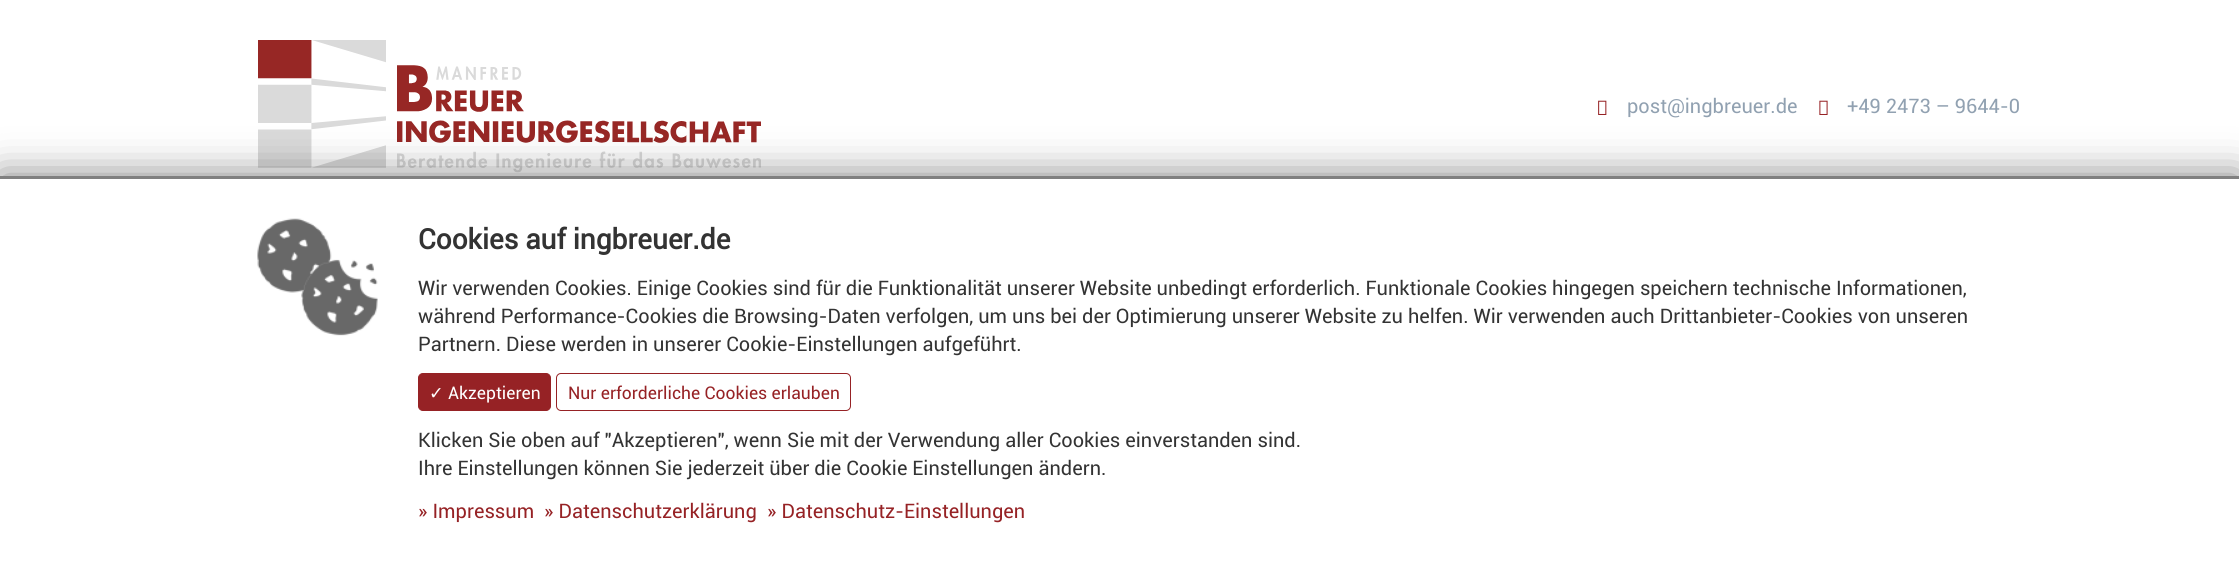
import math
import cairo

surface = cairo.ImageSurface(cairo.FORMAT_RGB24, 2239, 579)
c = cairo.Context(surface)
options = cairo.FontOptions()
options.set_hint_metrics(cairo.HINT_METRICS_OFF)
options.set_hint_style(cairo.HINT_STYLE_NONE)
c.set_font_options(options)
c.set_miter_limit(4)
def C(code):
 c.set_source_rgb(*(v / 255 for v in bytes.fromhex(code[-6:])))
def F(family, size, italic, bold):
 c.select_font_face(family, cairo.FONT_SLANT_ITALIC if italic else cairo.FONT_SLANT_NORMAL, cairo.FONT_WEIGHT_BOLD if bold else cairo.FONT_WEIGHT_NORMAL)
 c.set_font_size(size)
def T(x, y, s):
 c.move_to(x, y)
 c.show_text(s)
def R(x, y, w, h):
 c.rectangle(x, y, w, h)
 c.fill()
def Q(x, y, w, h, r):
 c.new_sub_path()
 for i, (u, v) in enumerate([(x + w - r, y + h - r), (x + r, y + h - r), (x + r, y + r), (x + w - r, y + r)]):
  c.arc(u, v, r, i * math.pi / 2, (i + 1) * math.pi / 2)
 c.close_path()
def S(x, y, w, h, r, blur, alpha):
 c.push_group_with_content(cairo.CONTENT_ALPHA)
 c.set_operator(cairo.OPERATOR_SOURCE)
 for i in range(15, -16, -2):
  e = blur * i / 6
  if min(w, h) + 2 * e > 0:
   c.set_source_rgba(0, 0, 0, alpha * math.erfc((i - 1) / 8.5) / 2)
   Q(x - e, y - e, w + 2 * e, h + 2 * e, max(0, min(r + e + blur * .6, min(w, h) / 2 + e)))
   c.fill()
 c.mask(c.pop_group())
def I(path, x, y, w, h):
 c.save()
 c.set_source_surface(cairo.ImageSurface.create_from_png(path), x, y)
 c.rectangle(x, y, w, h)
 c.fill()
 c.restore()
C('ffffff')
c.paint()
I('1.png',258,40,503,133)
I('2.png',1598,100,9,15)
F('Roboto',20,0,0)
C('91a1b1')
T(1627,113,'post@ingbreuer.de')
I('3.png',1819,100,9,15)
T(1847,113,'+49 2473 – 9644-0')
C('000000')
S(0,176,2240,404,0,20,.5)
C('ffffff')
R(0,179,2239,400)
C('808080')
R(0,176,2239,3)
I('4.png',257,218,121,118)
F('Roboto',28,0,1)
C('333333')
T(418,249,'Cookies auf ingbreuer.de')
F('Roboto',20,0,0)
T(418,295,'Wir verwenden Cookies. Einige Cookies sind für die Funktionalität unserer Website unbedingt erforderlich. Funktionale Cookies hingegen speichern technische Informationen,')
T(418,323,'während Performance-Cookies die Browsing-Daten verfolgen, um uns bei der Optimierung unserer Website zu helfen. Wir verwenden auch Drittanbieter-Cookies von unseren')
T(418,351,'Partnern. Diese werden in unserer Cookie-Einstellungen aufgeführt.')
C('962225')
Q(418.5,373.5,132,37,4.5)
c.fill_preserve()
c.set_line_width(1)
c.stroke()
F('DejaVu Sans',17.5,0,0)
C('ffffff')
T(429,399,'✓')
F('Roboto',17.5,0,0)
T(448,399,'Akzeptieren')
Q(556.5,373.5,294,37,4.5)
C('962225')
c.stroke()
T(568,399,'Nur erforderliche Cookies erlauben')
F('Roboto',20,0,0)
C('333333')
T(418,447,'Klicken Sie oben auf "Akzeptieren", wenn Sie mit der Verwendung aller Cookies einverstanden sind.')
T(418,475,'Ihre Einstellungen können Sie jederzeit über die Cookie Einstellungen ändern.')
C('962225')
T(418,518,'» Impressum')
T(544,518,'» Datenschutzerklärung')
T(767,518,'» Datenschutz-Einstellungen')
surface.write_to_png('o.png')
